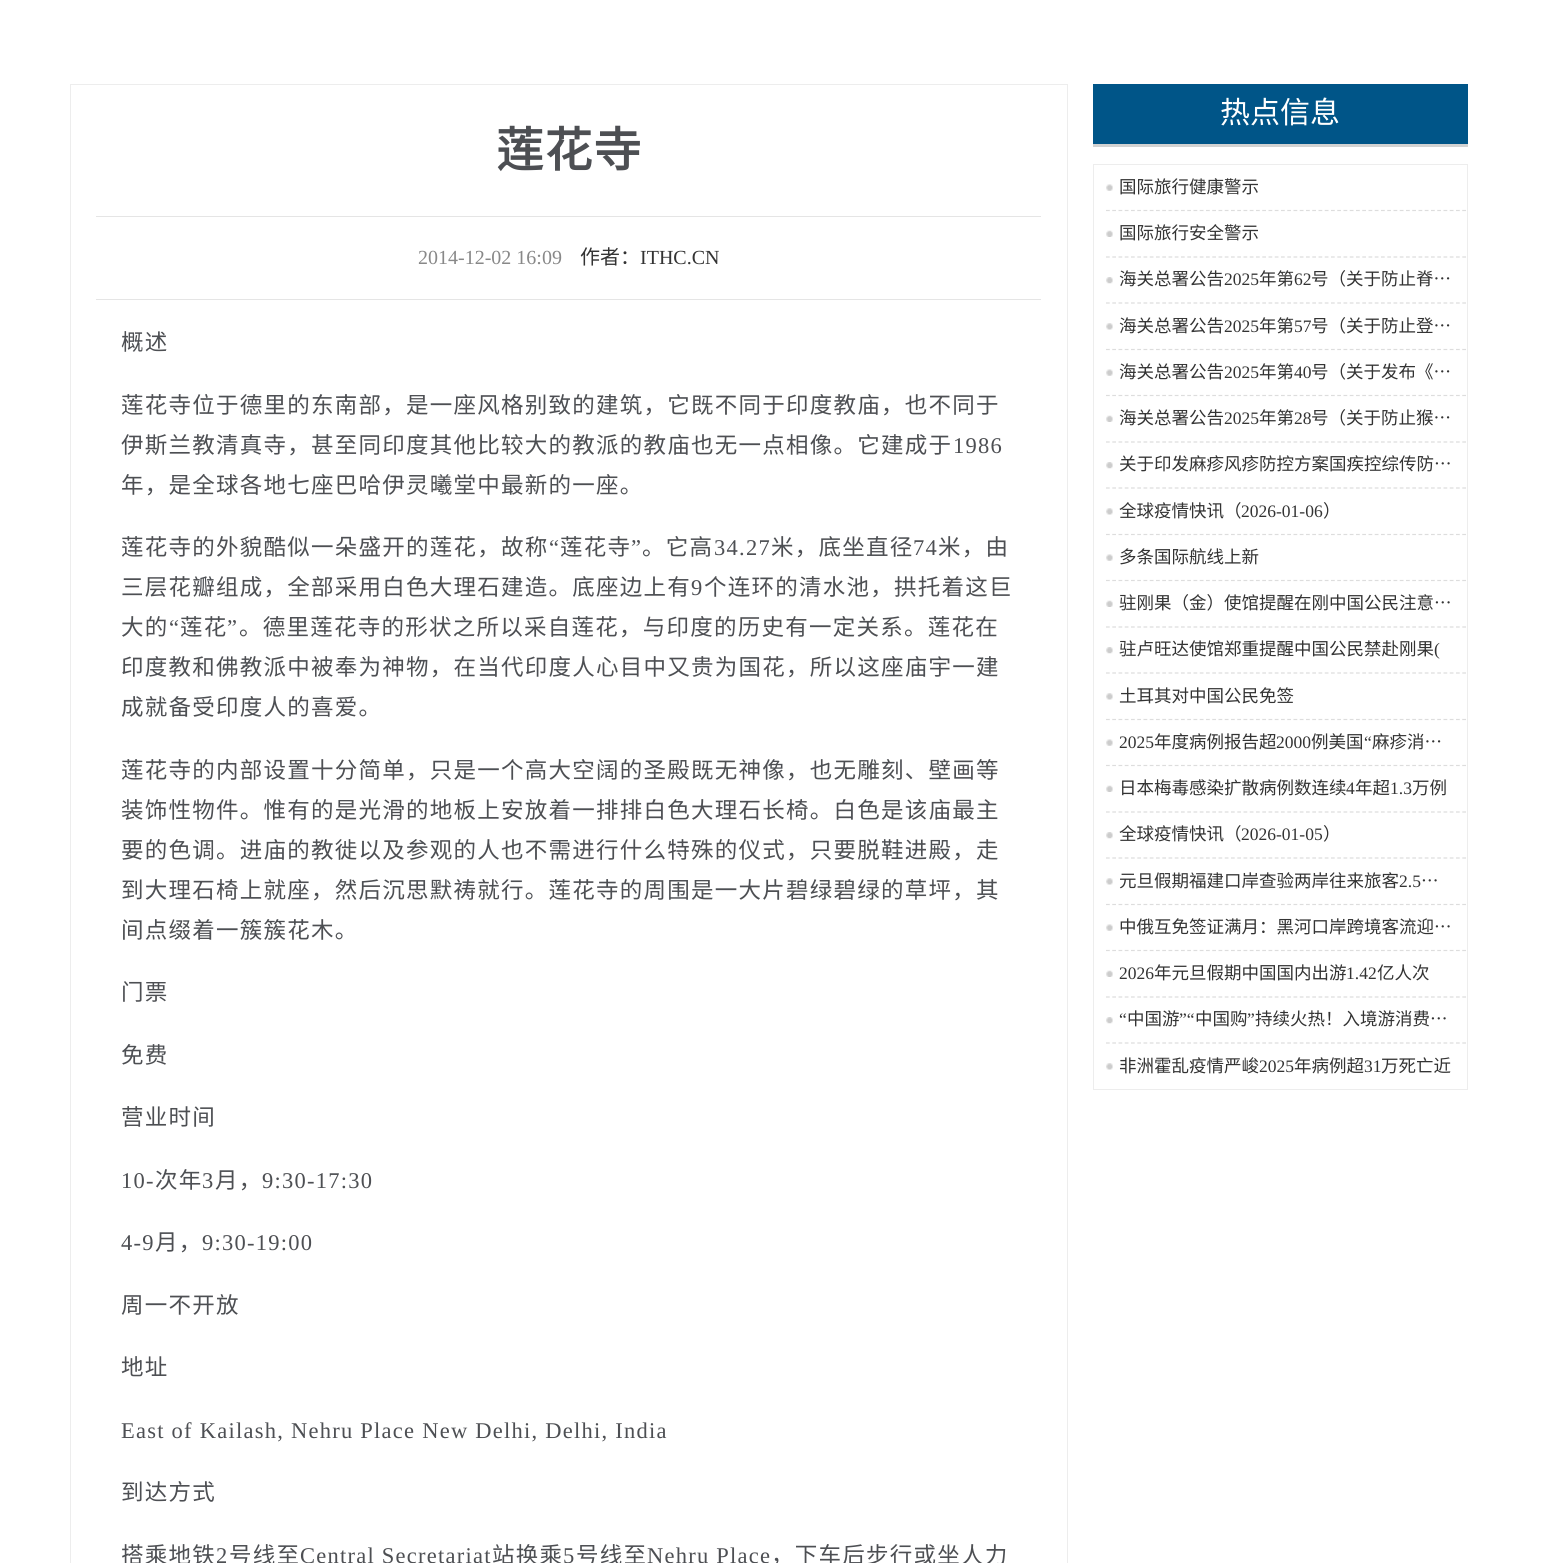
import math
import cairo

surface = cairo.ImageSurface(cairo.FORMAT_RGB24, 1565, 1563)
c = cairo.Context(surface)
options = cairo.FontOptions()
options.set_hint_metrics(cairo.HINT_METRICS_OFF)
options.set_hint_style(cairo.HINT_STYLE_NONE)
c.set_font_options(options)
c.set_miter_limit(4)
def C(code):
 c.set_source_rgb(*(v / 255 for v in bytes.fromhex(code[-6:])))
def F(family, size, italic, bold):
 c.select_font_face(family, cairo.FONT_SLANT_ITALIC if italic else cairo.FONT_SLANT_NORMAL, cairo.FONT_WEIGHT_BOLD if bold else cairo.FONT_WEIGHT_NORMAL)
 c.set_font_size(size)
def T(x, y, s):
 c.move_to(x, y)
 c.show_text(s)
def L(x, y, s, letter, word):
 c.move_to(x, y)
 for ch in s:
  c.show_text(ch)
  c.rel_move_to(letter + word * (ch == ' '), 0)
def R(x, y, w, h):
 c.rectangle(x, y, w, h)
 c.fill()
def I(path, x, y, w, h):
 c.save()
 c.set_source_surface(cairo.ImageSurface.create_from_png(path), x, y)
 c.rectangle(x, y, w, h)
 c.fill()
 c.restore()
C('ffffff')
c.paint()
c.rectangle(70.5,84.5,997,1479)
C('ededed')
c.set_line_width(1)
c.stroke()
F('Noto Sans CJK SC',47.5,0,1)
C('4d4f53')
L(496,167,'莲花寺',1.25,0)
C('e5e5e5')
R(96,216,945,1)
R(96,299,945,1)
F('Liberation Serif',20,0,0)
C('888888')
T(418,264,'2014-12-02 16:09')
F('Noto Sans CJK SC',20,0,0)
C('333333')
T(580,264,'作者：')
F('Liberation Serif',20,0,0)
T(640,264,'ITHC.CN')
F('Noto Sans CJK SC',22.5,0,0)
C('4d4f53')
L(121,350,'概述',1.25,0)
L(121,413,'莲花寺位于德里的东南部，是一座风格别致的建筑，它既不同于印度教庙，也不同于',1.25,0)
L(121,453,'伊斯兰教清真寺，甚至同印度其他比较大的教派的教庙也无一点相像。它建成于',1.25,0)
F('Liberation Serif',22.5,0,0)
L(953,453,'1986',1.25,0)
F('Noto Sans CJK SC',22.5,0,0)
L(121,493,'年，是全球各地七座巴哈伊灵曦堂中最新的一座。',1.25,0)
L(121,555,'莲花寺的外貌酷似一朵盛开的莲花，故称',1.25,0)
F('Liberation Serif',22.5,0,0)
L(549,555,'“',1.25,0)
F('Noto Sans CJK SC',22.5,0,0)
L(560,555,'莲花寺',1.25,0)
F('Liberation Serif',22.5,0,0)
L(631,555,'”',1.25,0)
F('Noto Sans CJK SC',22.5,0,0)
L(642,555,'。它高',1.25,0)
F('Liberation Serif',22.5,0,0)
L(714,555,'34.27',1.25,0)
F('Noto Sans CJK SC',22.5,0,0)
L(771,555,'米，底坐直径',1.25,0)
F('Liberation Serif',22.5,0,0)
L(913,555,'74',1.25,0)
F('Noto Sans CJK SC',22.5,0,0)
L(938,555,'米，由',1.25,0)
L(121,595,'三层花瓣组成，全部采用白色大理石建造。底座边上有',1.25,0)
F('Liberation Serif',22.5,0,0)
L(691,595,'9',1.25,0)
F('Noto Sans CJK SC',22.5,0,0)
L(704,595,'个连环的清水池，拱托着这巨',1.25,0)
L(121,635,'大的',1.25,0)
F('Liberation Serif',22.5,0,0)
L(169,635,'“',1.25,0)
F('Noto Sans CJK SC',22.5,0,0)
L(180,635,'莲花',1.25,0)
F('Liberation Serif',22.5,0,0)
L(227,635,'”',1.25,0)
F('Noto Sans CJK SC',22.5,0,0)
L(239,635,'。德里莲花寺的形状之所以采自莲花，与印度的历史有一定关系。莲花在',1.25,0)
L(121,675,'印度教和佛教派中被奉为神物，在当代印度人心目中又贵为国花，所以这座庙宇一建',1.25,0)
L(121,715,'成就备受印度人的喜爱。',1.25,0)
L(121,778,'莲花寺的内部设置十分简单，只是一个高大空阔的圣殿既无神像，也无雕刻、壁画等',1.25,0)
L(121,818,'装饰性物件。惟有的是光滑的地板上安放着一排排白色大理石长椅。白色是该庙最主',1.25,0)
L(121,858,'要的色调。进庙的教徙以及参观的人也不需进行什么特殊的仪式，只要脱鞋进殿，走',1.25,0)
L(121,898,'到大理石椅上就座，然后沉思默祷就行。莲花寺的周围是一大片碧绿碧绿的草坪，其',1.25,0)
L(121,938,'间点缀着一簇簇花木。',1.25,0)
L(121,1000,'门票',1.25,0)
L(121,1063,'免费',1.25,0)
L(121,1125,'营业时间',1.25,0)
F('Liberation Serif',22.5,0,0)
L(121,1188,'10-',1.25,0)
F('Noto Sans CJK SC',22.5,0,0)
L(155,1188,'次年',1.25,0)
F('Liberation Serif',22.5,0,0)
L(202,1188,'3',1.25,0)
F('Noto Sans CJK SC',22.5,0,0)
L(215,1188,'月，',1.25,0)
F('Liberation Serif',22.5,0,0)
L(262,1188,'9:30-17:30',1.25,0)
L(121,1250,'4-9',1.25,0)
F('Noto Sans CJK SC',22.5,0,0)
L(155,1250,'月，',1.25,0)
F('Liberation Serif',22.5,0,0)
L(202,1250,'9:30-19:00',1.25,0)
F('Noto Sans CJK SC',22.5,0,0)
L(121,1313,'周一不开放',1.25,0)
L(121,1375,'地址',1.25,0)
F('Liberation Serif',22.5,0,0)
L(121,1438,'East of Kailash, Nehru Place New Delhi, Delhi, India',1.25,0)
F('Noto Sans CJK SC',22.5,0,0)
L(121,1500,'到达方式',1.25,0)
L(121,1563,'搭乘地铁',1.25,0)
F('Liberation Serif',22.5,0,0)
L(216,1563,'2',1.25,0)
F('Noto Sans CJK SC',22.5,0,0)
L(229,1563,'号线至',1.25,0)
F('Liberation Serif',22.5,0,0)
L(300,1563,'Central Secretariat',1.25,0)
F('Noto Sans CJK SC',22.5,0,0)
L(492,1563,'站换乘',1.25,0)
F('Liberation Serif',22.5,0,0)
L(563,1563,'5',1.25,0)
F('Noto Sans CJK SC',22.5,0,0)
L(576,1563,'号线至',1.25,0)
F('Liberation Serif',22.5,0,0)
L(647,1563,'Nehru Place',1.25,0)
F('Noto Sans CJK SC',22.5,0,0)
L(771,1563,'，下车后步行或坐人力',1.25,0)
C('005588')
R(1093,84,375,60)
C('d2d2d2')
R(1093,144,375,3)
F('Noto Sans CJK SC',30,0,0)
C('ffffff')
T(1220,123,'热点信息')
c.rectangle(1093.5,164.5,374,925)
C('ededed')
c.stroke()
I('1.png',1106,184,7,7)
c.new_path()
c.move_to(1106,210.5)
c.line_to(1466,210.5)
C('dddddd')
c.set_line_width(1.2)
c.set_dash([3.75,2.5])
c.stroke()
F('Noto Sans CJK SC',17.5,0,0)
C('333333')
T(1119,193,'国际旅行健康警示')
I('2.png',1106,230,7,7)
c.new_path()
c.move_to(1106,257)
c.line_to(1466,257)
C('dddddd')
c.stroke()
C('333333')
T(1119,239,'国际旅行安全警示')
I('3.png',1106,277,7,7)
c.new_path()
c.move_to(1106,303)
c.line_to(1466,303)
C('dddddd')
c.stroke()
C('333333')
T(1119,285,'海关总署公告')
F('Liberation Serif',17.5,0,0)
T(1224,285,'2025')
F('Noto Sans CJK SC',17.5,0,0)
T(1259,285,'年第')
F('Liberation Serif',17.5,0,0)
T(1294,285,'62')
F('Noto Sans CJK SC',17.5,0,0)
T(1311,285,'号（关于防止脊…')
I('4.png',1106,323,7,7)
c.new_path()
c.move_to(1106,349.5)
c.line_to(1466,349.5)
C('dddddd')
c.stroke()
C('333333')
T(1119,332,'海关总署公告')
F('Liberation Serif',17.5,0,0)
T(1224,332,'2025')
F('Noto Sans CJK SC',17.5,0,0)
T(1259,332,'年第')
F('Liberation Serif',17.5,0,0)
T(1294,332,'57')
F('Noto Sans CJK SC',17.5,0,0)
T(1311,332,'号（关于防止登…')
I('1.png',1106,369,7,7)
c.new_path()
c.move_to(1106,395.5)
c.line_to(1466,395.5)
C('dddddd')
c.stroke()
C('333333')
T(1119,378,'海关总署公告')
F('Liberation Serif',17.5,0,0)
T(1224,378,'2025')
F('Noto Sans CJK SC',17.5,0,0)
T(1259,378,'年第')
F('Liberation Serif',17.5,0,0)
T(1294,378,'40')
F('Noto Sans CJK SC',17.5,0,0)
T(1311,378,'号（关于发布《…')
I('2.png',1106,415,7,7)
c.new_path()
c.move_to(1106,442)
c.line_to(1466,442)
C('dddddd')
c.stroke()
C('333333')
T(1119,424,'海关总署公告')
F('Liberation Serif',17.5,0,0)
T(1224,424,'2025')
F('Noto Sans CJK SC',17.5,0,0)
T(1259,424,'年第')
F('Liberation Serif',17.5,0,0)
T(1294,424,'28')
F('Noto Sans CJK SC',17.5,0,0)
T(1311,424,'号（关于防止猴…')
I('3.png',1106,462,7,7)
c.new_path()
c.move_to(1106,488)
c.line_to(1466,488)
C('dddddd')
c.stroke()
C('333333')
T(1119,470,'关于印发麻疹风疹防控方案国疾控综传防…')
I('4.png',1106,508,7,7)
c.new_path()
c.move_to(1106,534.5)
c.line_to(1466,534.5)
C('dddddd')
c.stroke()
C('333333')
T(1119,517,'全球疫情快讯（')
F('Liberation Serif',17.5,0,0)
T(1241,517,'2026-01-06')
F('Noto Sans CJK SC',17.5,0,0)
T(1323,517,'）')
I('1.png',1106,554,7,7)
c.new_path()
c.move_to(1106,580.5)
c.line_to(1466,580.5)
C('dddddd')
c.stroke()
C('333333')
T(1119,563,'多条国际航线上新')
I('2.png',1106,600,7,7)
c.new_path()
c.move_to(1106,627)
c.line_to(1466,627)
C('dddddd')
c.stroke()
C('333333')
T(1119,609,'驻刚果（金）使馆提醒在刚中国公民注意…')
I('3.png',1106,647,7,7)
c.new_path()
c.move_to(1106,673)
c.line_to(1466,673)
C('dddddd')
c.stroke()
C('333333')
T(1119,655,'驻卢旺达使馆郑重提醒中国公民禁赴刚果')
F('Liberation Serif',17.5,0,0)
T(1434,655,'(')
I('4.png',1106,693,7,7)
c.new_path()
c.move_to(1106,719.5)
c.line_to(1466,719.5)
C('dddddd')
c.stroke()
F('Noto Sans CJK SC',17.5,0,0)
C('333333')
T(1119,702,'土耳其对中国公民免签')
I('1.png',1106,739,7,7)
c.new_path()
c.move_to(1106,765.5)
c.line_to(1466,765.5)
C('dddddd')
c.stroke()
F('Liberation Serif',17.5,0,0)
C('333333')
T(1119,748,'2025')
F('Noto Sans CJK SC',17.5,0,0)
T(1154,748,'年度病例报告超')
F('Liberation Serif',17.5,0,0)
T(1276,748,'2000')
F('Noto Sans CJK SC',17.5,0,0)
T(1311,748,'例美国')
F('Liberation Serif',17.5,0,0)
T(1364,748,'“')
F('Noto Sans CJK SC',17.5,0,0)
T(1372,748,'麻疹消…')
I('2.png',1106,785,7,7)
c.new_path()
c.move_to(1106,812)
c.line_to(1466,812)
C('dddddd')
c.stroke()
C('333333')
T(1119,794,'日本梅毒感染扩散病例数连续')
F('Liberation Serif',17.5,0,0)
T(1346,794,'4')
F('Noto Sans CJK SC',17.5,0,0)
T(1355,794,'年超')
F('Liberation Serif',17.5,0,0)
T(1390,794,'1.3')
F('Noto Sans CJK SC',17.5,0,0)
T(1412,794,'万例')
I('3.png',1106,832,7,7)
c.new_path()
c.move_to(1106,858)
c.line_to(1466,858)
C('dddddd')
c.stroke()
C('333333')
T(1119,840,'全球疫情快讯（')
F('Liberation Serif',17.5,0,0)
T(1241,840,'2026-01-05')
F('Noto Sans CJK SC',17.5,0,0)
T(1323,840,'）')
I('4.png',1106,878,7,7)
c.new_path()
c.move_to(1106,904.5)
c.line_to(1466,904.5)
C('dddddd')
c.stroke()
C('333333')
T(1119,887,'元旦假期福建口岸查验两岸往来旅客')
F('Liberation Serif',17.5,0,0)
T(1399,887,'2.5')
F('Noto Sans CJK SC',17.5,0,0)
T(1421,887,'…')
I('1.png',1106,924,7,7)
c.new_path()
c.move_to(1106,950.5)
c.line_to(1466,950.5)
C('dddddd')
c.stroke()
C('333333')
T(1119,933,'中俄互免签证满月：黑河口岸跨境客流迎…')
I('2.png',1106,970,7,7)
c.new_path()
c.move_to(1106,997)
c.line_to(1466,997)
C('dddddd')
c.stroke()
F('Liberation Serif',17.5,0,0)
C('333333')
T(1119,979,'2026')
F('Noto Sans CJK SC',17.5,0,0)
T(1154,979,'年元旦假期中国国内出游')
F('Liberation Serif',17.5,0,0)
T(1346,979,'1.42')
F('Noto Sans CJK SC',17.5,0,0)
T(1377,979,'亿人次')
I('3.png',1106,1017,7,7)
c.new_path()
c.move_to(1106,1043)
c.line_to(1466,1043)
C('dddddd')
c.stroke()
F('Liberation Serif',17.5,0,0)
C('333333')
T(1119,1025,'“')
F('Noto Sans CJK SC',17.5,0,0)
T(1127,1025,'中国游')
F('Liberation Serif',17.5,0,0)
T(1179,1025,'”“')
F('Noto Sans CJK SC',17.5,0,0)
T(1195,1025,'中国购')
F('Liberation Serif',17.5,0,0)
T(1247,1025,'”')
F('Noto Sans CJK SC',17.5,0,0)
T(1255,1025,'持续火热！入境游消费…')
I('4.png',1106,1063,7,7)
T(1119,1072,'非洲霍乱疫情严峻')
F('Liberation Serif',17.5,0,0)
T(1259,1072,'2025')
F('Noto Sans CJK SC',17.5,0,0)
T(1294,1072,'年病例超')
F('Liberation Serif',17.5,0,0)
T(1364,1072,'31')
F('Noto Sans CJK SC',17.5,0,0)
T(1381,1072,'万死亡近')
surface.write_to_png('o.png')
